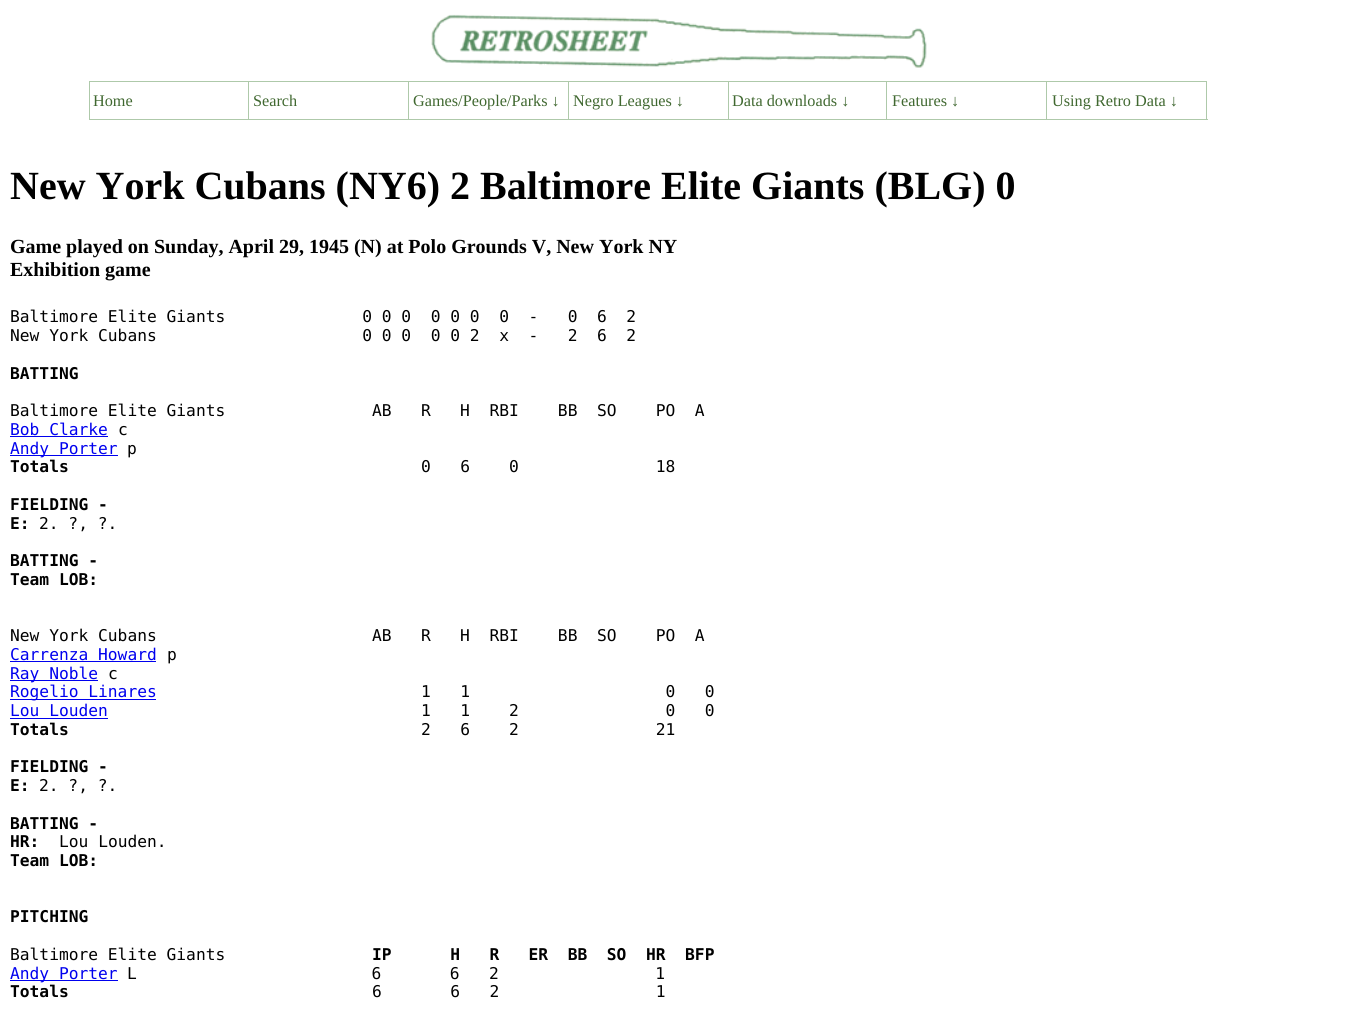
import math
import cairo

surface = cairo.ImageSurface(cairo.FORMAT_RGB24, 1356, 1022)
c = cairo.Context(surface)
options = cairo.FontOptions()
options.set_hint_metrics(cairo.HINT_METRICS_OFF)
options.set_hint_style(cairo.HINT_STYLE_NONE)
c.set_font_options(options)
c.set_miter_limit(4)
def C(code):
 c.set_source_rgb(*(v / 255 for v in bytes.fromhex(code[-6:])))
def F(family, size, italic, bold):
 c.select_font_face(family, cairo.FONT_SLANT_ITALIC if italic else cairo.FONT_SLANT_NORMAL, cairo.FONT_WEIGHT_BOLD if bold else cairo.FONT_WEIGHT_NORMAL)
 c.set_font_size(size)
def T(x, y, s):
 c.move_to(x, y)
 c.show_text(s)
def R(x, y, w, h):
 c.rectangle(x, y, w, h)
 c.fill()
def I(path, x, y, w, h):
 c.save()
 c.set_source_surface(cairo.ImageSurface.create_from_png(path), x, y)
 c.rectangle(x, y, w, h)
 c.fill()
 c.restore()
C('ffffff')
c.paint()
I('1.png',431,14,496,54)
C('aec9aa')
R(1206,81,1,39)
R(89,119,1119,1)
R(89,81,1117,1)
R(89,81,1,38)
F('Liberation Serif',16.25,0,0)
C('406830')
T(93,106,'Home')
C('aec9aa')
R(248,81,1,38)
C('406830')
T(253,106,'Search')
C('aec9aa')
R(408,81,1,38)
C('406830')
T(413,106,'Games/People/Parks ↓')
C('aec9aa')
R(568,81,1,38)
C('406830')
T(573,106,'Negro Leagues ↓')
C('aec9aa')
R(728,81,1,38)
C('406830')
T(732,106,'Data downloads ↓')
C('aec9aa')
R(886,81,1,38)
C('406830')
T(892,106,'Features ↓')
C('aec9aa')
R(1046,81,1,38)
C('406830')
T(1052,106,'Using Retro Data ↓')
F('Liberation Serif',40,0,1)
C('000000')
T(10,199,'New York Cubans (NY6) 2 Baltimore Elite Giants (BLG) 0')
F('Liberation Serif',20,0,1)
T(10,253,'Game played on Sunday, April 29, 1945 (N) at Polo Grounds V, New York NY')
T(10,276,'Exhibition game')
F('DejaVu Sans Mono',16.25,0,0)
T(10,322,'Baltimore Elite Giants              0 0 0  0 0 0  0  -   0  6  2')
T(10,341,'New York Cubans                     0 0 0  0 0 2  x  -   2  6  2')
F('DejaVu Sans Mono',16.25,0,1)
T(10,379,'BATTING')
F('DejaVu Sans Mono',16.25,0,0)
T(10,416,'Baltimore Elite Giants               AB   R   H  RBI    BB  SO    PO  A')
C('0000ee')
T(10,435,'Bob Clarke')
R(10,436,98,1)
C('000000')
T(118,435,'c')
C('0000ee')
R(10,455,108,1)
T(10,454,'Andy Porter')
C('000000')
T(127,454,'p')
F('DejaVu Sans Mono',16.25,0,1)
T(10,472,'Totals')
F('DejaVu Sans Mono',16.25,0,0)
T(421,472,'0   6    0              18')
F('DejaVu Sans Mono',16.25,0,1)
T(10,510,'FIELDING -')
T(10,529,'E:')
F('DejaVu Sans Mono',16.25,0,0)
T(39,529,'2. ?, ?.')
F('DejaVu Sans Mono',16.25,0,1)
T(10,566,'BATTING -')
T(10,585,'Team LOB:')
F('DejaVu Sans Mono',16.25,0,0)
T(10,641,'New York Cubans                      AB   R   H  RBI    BB  SO    PO  A')
C('0000ee')
T(10,660,'Carrenza Howard')
R(10,661,146,1)
C('000000')
T(167,660,'p')
C('0000ee')
R(10,680,88,1)
T(10,679,'Ray Noble')
C('000000')
T(108,679,'c')
C('0000ee')
R(10,699,146,1)
T(10,697,'Rogelio Linares')
C('000000')
T(421,697,'1   1                    0   0')
C('0000ee')
T(10,716,'Lou Louden')
R(10,718,98,1)
C('000000')
T(421,716,'1   1    2               0   0')
F('DejaVu Sans Mono',16.25,0,1)
T(10,735,'Totals')
F('DejaVu Sans Mono',16.25,0,0)
T(421,735,'2   6    2              21')
F('DejaVu Sans Mono',16.25,0,1)
T(10,772,'FIELDING -')
T(10,791,'E:')
F('DejaVu Sans Mono',16.25,0,0)
T(39,791,'2. ?, ?.')
F('DejaVu Sans Mono',16.25,0,1)
T(10,829,'BATTING -')
T(10,847,'HR:')
F('DejaVu Sans Mono',16.25,0,0)
T(59,847,'Lou Louden.')
F('DejaVu Sans Mono',16.25,0,1)
T(10,866,'Team LOB:')
T(10,922,'PITCHING')
F('DejaVu Sans Mono',16.25,0,0)
T(10,960,'Baltimore Elite Giants')
F('DejaVu Sans Mono',16.25,0,1)
T(372,960,'IP      H   R   ER  BB  SO  HR  BFP')
C('0000ee')
R(10,980,108,1)
F('DejaVu Sans Mono',16.25,0,0)
T(10,979,'Andy Porter')
C('000000')
T(127,979,'L                        6       6   2                1')
F('DejaVu Sans Mono',16.25,0,1)
T(10,997,'Totals')
F('DejaVu Sans Mono',16.25,0,0)
T(372,997,'6       6   2                1')
surface.write_to_png('o.png')
